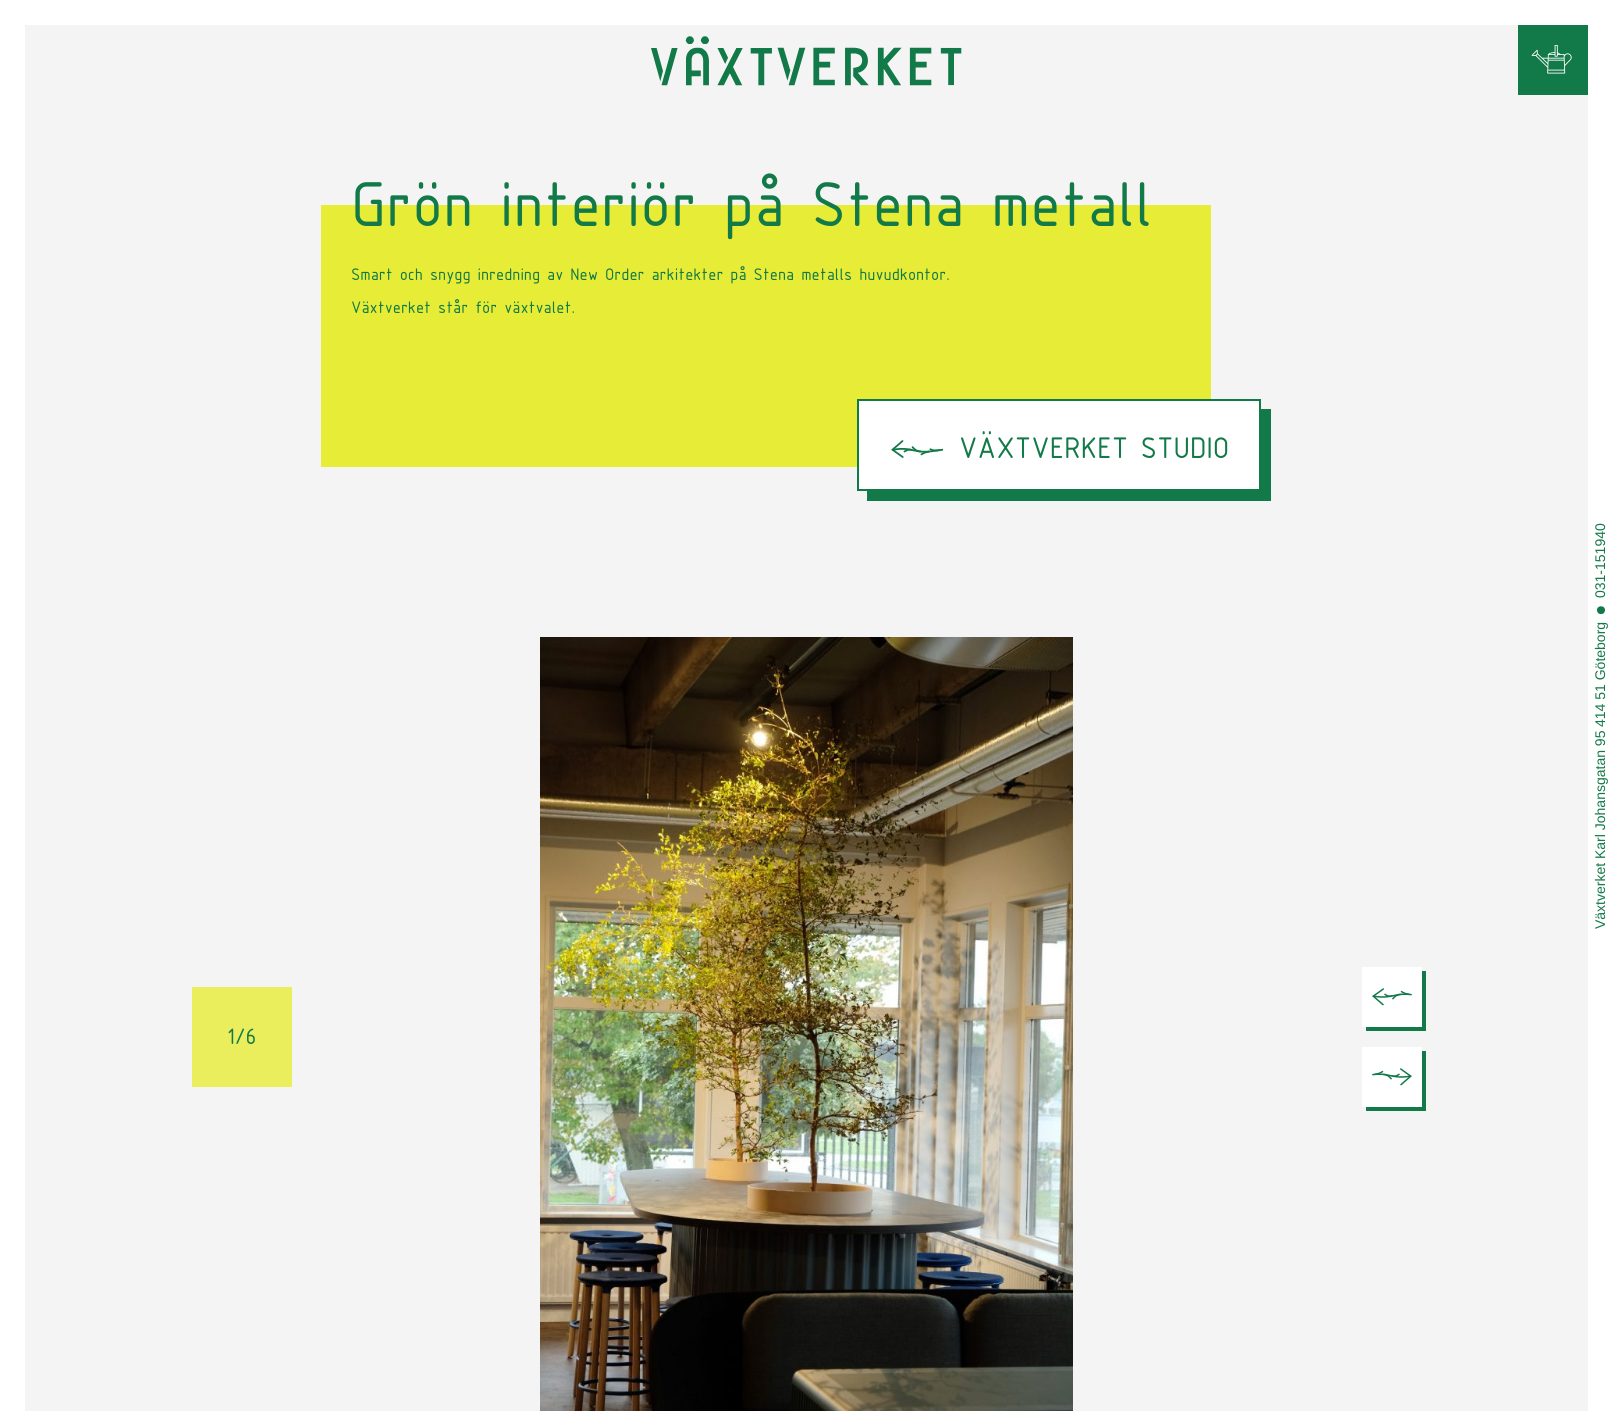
import math
import cairo

surface = cairo.ImageSurface(cairo.FORMAT_RGB24, 1613, 1411)
c = cairo.Context(surface)
options = cairo.FontOptions()
options.set_hint_metrics(cairo.HINT_METRICS_OFF)
options.set_hint_style(cairo.HINT_STYLE_NONE)
c.set_font_options(options)
c.set_miter_limit(4)
def C(code):
 c.set_source_rgb(*(v / 255 for v in bytes.fromhex(code[-6:])))
def F(family, size, italic, bold):
 c.select_font_face(family, cairo.FONT_SLANT_ITALIC if italic else cairo.FONT_SLANT_NORMAL, cairo.FONT_WEIGHT_BOLD if bold else cairo.FONT_WEIGHT_NORMAL)
 c.set_font_size(size)
def T(x, y, s):
 c.move_to(x, y)
 c.show_text(s)
def R(x, y, w, h):
 c.rectangle(x, y, w, h)
 c.fill()
def I(path, x, y, w, h):
 c.save()
 c.set_source_surface(cairo.ImageSurface.create_from_png(path), x, y)
 c.rectangle(x, y, w, h)
 c.fill()
 c.restore()
C('ffffff')
c.paint()
C('f4f4f4')
R(25,25,1563,1386)
I('1.png',651,36,311,50)
C('127948')
R(1518,25,70,70)
I('2.png',1531,45,41,29)
C('e7ec36')
R(321,205,890,262)
F('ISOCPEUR',68,0,0)
C('127948')
T(351,226,'Grön interiör på Stena metall')
F('ISOCPEUR',18,0,0)
T(351,280,'Smart och snygg inredning av New Order arkitekter på Stena metalls huvudkontor.')
T(351,313,'Växtverket står för växtvalet.')
c.new_path()
c.move_to(867,491)
c.line_to(867,501)
c.line_to(1271,501)
c.line_to(1271,409)
c.line_to(1261,409)
c.line_to(1261,491)
c.close_path()
c.fill()
C('ffffff')
c.rectangle(858,400,402,90)
c.fill_preserve()
C('127948')
c.stroke()
I('3.png',891,440,52,18)
F('ISOCPEUR',32,0,0)
T(959,458,'VÄXTVERKET STUDIO')
C('eaee5c')
R(192,987,100,100)
F('ISOCPEUR',24,0,0)
C('127948')
T(227,1044,'1/6')
I('4.png',540,637,533,774)
c.new_path()
c.move_to(1366,1027)
c.line_to(1366,1031)
c.line_to(1426,1031)
c.line_to(1426,971)
c.line_to(1422,971)
c.line_to(1422,1027)
c.close_path()
c.fill()
C('ffffff')
R(1362,967,60,60)
I('5.png',1372,988,40,18)
C('127948')
c.new_path()
c.move_to(1366,1107)
c.line_to(1366,1111)
c.line_to(1426,1111)
c.line_to(1426,1051)
c.line_to(1422,1051)
c.line_to(1422,1107)
c.close_path()
c.fill()
C('ffffff')
R(1362,1047,60,60)
I('6.png',1372,1068,40,18)
F('Liberation Sans',14,0,0)
C('127948')
c.save()
c.translate(1605,598)
c.rotate(-90 * math.pi / 180)
T(0,0,'031-151940')
c.restore()
c.new_path()
c.move_to(1597,610)
c.curve_to(1597,605,1605,605,1605,610)
c.curve_to(1605,615.5,1597,615.5,1597,610)
c.close_path()
c.fill()
c.save()
c.translate(1605,727)
c.rotate(-90 * math.pi / 180)
T(0,0,'414 51 Göteborg')
c.restore()
c.save()
c.translate(1605,859)
c.rotate(-90 * math.pi / 180)
T(0,0,'Karl Johansgatan 95')
c.restore()
c.save()
c.translate(1605,929)
c.rotate(-90 * math.pi / 180)
T(0,0,'Växtverket')
c.restore()
surface.write_to_png('o.png')
